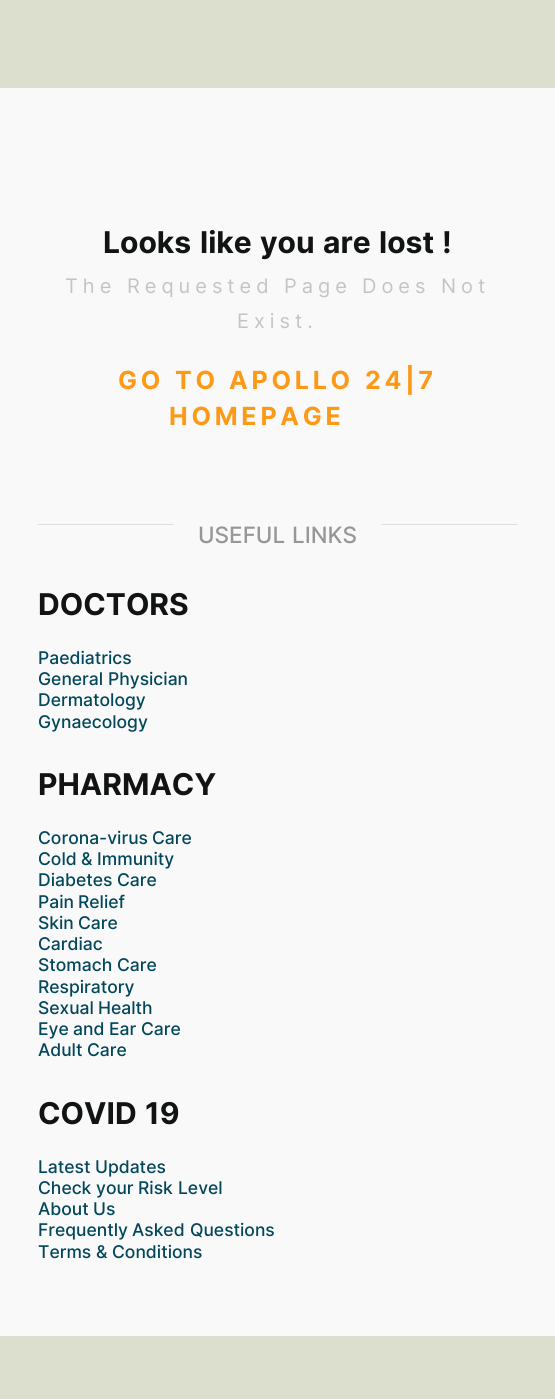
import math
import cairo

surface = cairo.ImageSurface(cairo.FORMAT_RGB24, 555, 1399)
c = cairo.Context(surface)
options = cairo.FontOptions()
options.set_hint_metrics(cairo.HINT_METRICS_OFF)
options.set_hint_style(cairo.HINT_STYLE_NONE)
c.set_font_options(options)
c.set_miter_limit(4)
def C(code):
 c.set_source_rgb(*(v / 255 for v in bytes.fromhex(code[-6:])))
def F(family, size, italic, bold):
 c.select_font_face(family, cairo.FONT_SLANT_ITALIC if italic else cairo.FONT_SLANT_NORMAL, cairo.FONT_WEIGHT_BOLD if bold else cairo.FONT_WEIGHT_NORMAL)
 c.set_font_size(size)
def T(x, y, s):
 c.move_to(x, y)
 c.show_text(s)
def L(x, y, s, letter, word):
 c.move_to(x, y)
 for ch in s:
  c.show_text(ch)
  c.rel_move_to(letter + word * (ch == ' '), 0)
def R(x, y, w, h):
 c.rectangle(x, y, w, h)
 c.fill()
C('dcdfce')
c.paint()
C('f9f9f9')
R(0,88,555,1248)
F('Inter',30,0,1)
C('121414')
T(103,253,'Looks')
T(200,253,'like')
T(260,253,'you')
T(323,253,'are')
T(379,253,'lost')
T(442,253,'!')
F('Inter',20,0,0)
C('c4c4c4')
L(65,293,'The',5,0)
L(127,293,'Requested',5,0)
L(284,293,'Page',5,0)
L(362,293,'Does',5,0)
L(441,293,'Not',5,0)
L(237,328,'Exist.',5,0)
F('Inter',25,0,1)
C('fc9916')
L(118,389,'GO',3.75,0)
L(175,389,'TO',3.75,0)
L(229,389,'APOLLO',3.75,0)
L(365,389,'24|7',3.75,0)
L(169,425,'HOMEPAGE',3.75,0)
C('e0e0e0')
R(38,524,480,1)
F('Inter Medium',22.5,0,0)
C('979797')
T(198,543,'USEFUL')
C('f9f9f9')
R(174,524,207,1)
C('979797')
T(292,543,'LINKS')
F('Inter',30,0,1)
C('121414')
T(38,615,'DOCTORS')
F('Inter Medium',17.5,0,0)
C('02475b')
T(38,664,'Paediatrics')
T(38,685,'General')
T(108,685,'Physician')
T(38,706,'Dermatology')
T(38,728,'Gynaecology')
F('Inter',30,0,1)
C('121414')
T(38,795,'PHARMACY')
F('Inter Medium',17.5,0,0)
C('02475b')
T(38,844,'Corona-virus')
T(152,844,'Care')
T(38,865,'Cold')
T(81,865,'&')
T(97,865,'Immunity')
T(38,886,'Diabetes')
T(117,886,'Care')
T(38,908,'Pain')
T(78,908,'Relief')
T(38,929,'Skin')
T(78,929,'Care')
T(38,950,'Cardiac')
T(38,971,'Stomach')
T(117,971,'Care')
T(38,993,'Respiratory')
T(38,1014,'Sexual')
T(98,1014,'Health')
T(38,1035,'Eye')
T(73,1035,'and')
T(109,1035,'Ear')
T(141,1035,'Care')
T(38,1056,'Adult')
T(87,1056,'Care')
F('Inter',30,0,1)
C('121414')
T(38,1124,'COVID')
T(145,1124,'19')
F('Inter Medium',17.5,0,0)
C('02475b')
T(38,1173,'Latest')
T(95,1173,'Updates')
T(38,1194,'Check')
T(96,1194,'your')
T(138,1194,'Risk')
T(178,1194,'Level')
T(38,1215,'About')
T(93,1215,'Us')
T(38,1236,'Frequently')
T(132,1236,'Asked')
T(190,1236,'Questions')
T(38,1258,'Terms')
T(96,1258,'&')
T(112,1258,'Conditions')
surface.write_to_png('o.png')
